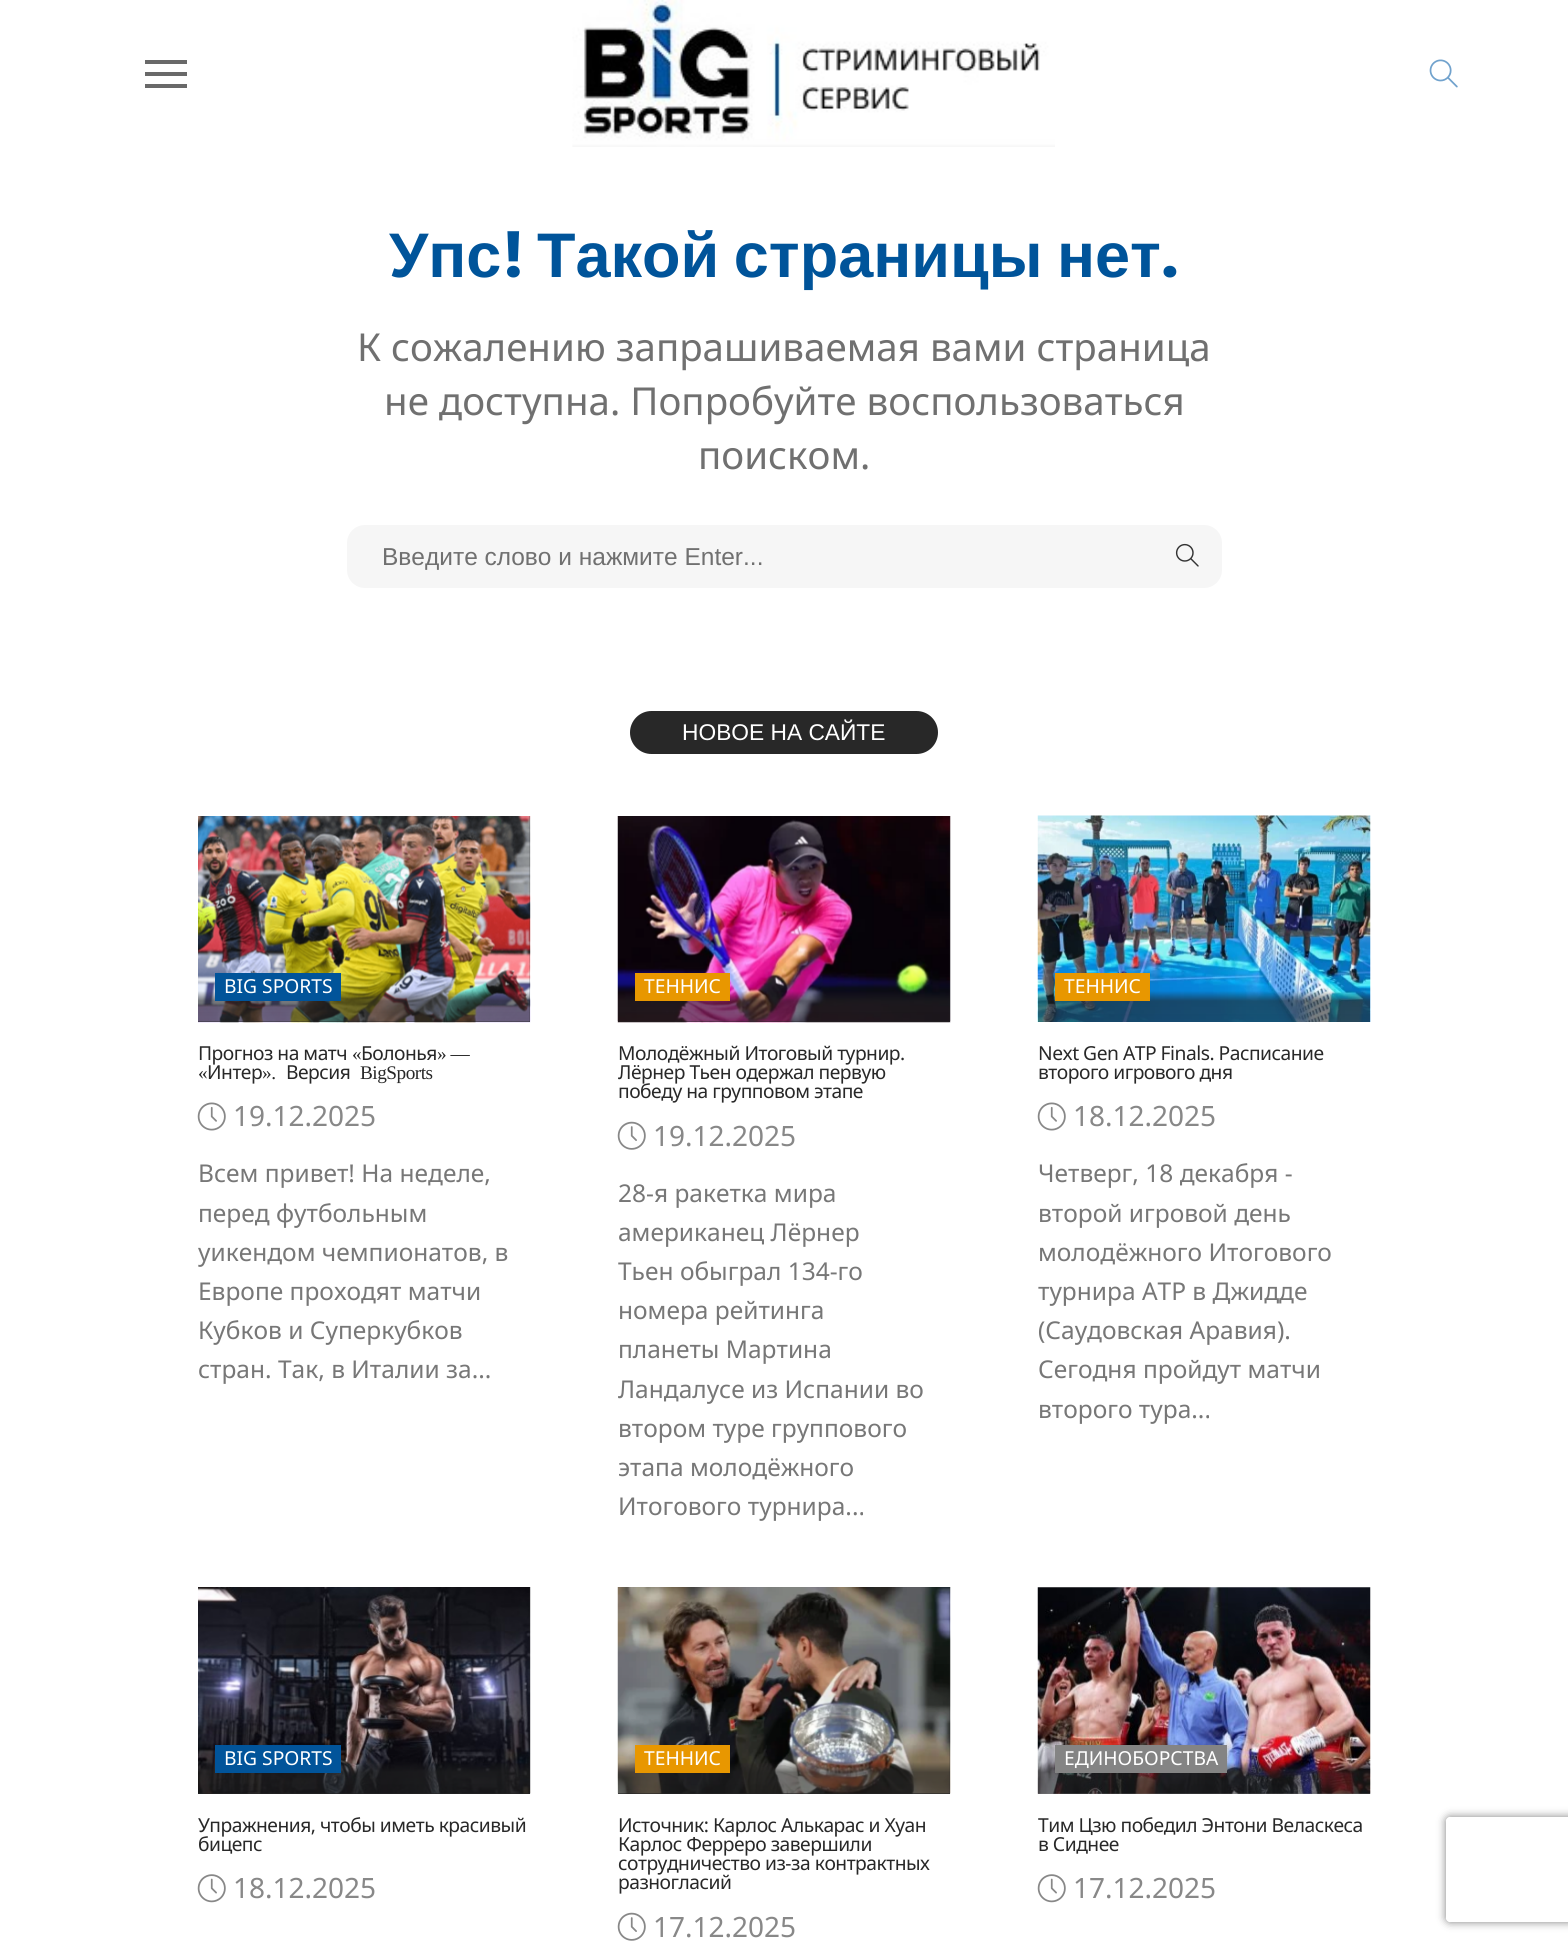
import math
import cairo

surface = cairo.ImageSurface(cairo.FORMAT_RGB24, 1568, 1946)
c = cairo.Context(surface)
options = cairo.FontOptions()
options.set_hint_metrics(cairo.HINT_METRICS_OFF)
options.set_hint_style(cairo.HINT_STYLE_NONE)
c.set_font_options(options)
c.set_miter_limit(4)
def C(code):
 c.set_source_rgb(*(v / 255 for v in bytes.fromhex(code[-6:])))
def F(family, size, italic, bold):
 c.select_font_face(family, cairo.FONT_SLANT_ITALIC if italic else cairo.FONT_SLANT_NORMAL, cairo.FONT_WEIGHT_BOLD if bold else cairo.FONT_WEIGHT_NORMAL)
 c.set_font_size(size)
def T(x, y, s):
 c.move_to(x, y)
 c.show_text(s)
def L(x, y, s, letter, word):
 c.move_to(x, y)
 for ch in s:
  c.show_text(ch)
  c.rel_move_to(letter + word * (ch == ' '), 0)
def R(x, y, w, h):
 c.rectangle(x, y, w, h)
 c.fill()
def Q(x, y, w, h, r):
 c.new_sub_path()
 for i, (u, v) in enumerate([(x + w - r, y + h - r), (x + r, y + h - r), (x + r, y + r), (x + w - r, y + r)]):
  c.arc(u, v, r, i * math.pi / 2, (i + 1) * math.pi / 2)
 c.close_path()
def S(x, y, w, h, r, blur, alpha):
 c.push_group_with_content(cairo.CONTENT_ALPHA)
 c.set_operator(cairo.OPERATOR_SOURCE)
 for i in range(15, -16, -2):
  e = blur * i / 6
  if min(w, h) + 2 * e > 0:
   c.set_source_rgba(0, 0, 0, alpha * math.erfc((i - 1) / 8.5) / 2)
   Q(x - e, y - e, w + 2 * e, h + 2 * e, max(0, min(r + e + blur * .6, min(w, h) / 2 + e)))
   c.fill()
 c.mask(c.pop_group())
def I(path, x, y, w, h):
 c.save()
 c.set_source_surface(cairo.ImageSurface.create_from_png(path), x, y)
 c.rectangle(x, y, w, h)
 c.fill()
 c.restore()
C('ffffff')
c.paint()
C('696969')
R(145,72,42,4)
R(145,60,42,4)
R(145,84,42,4)
I('1.png',572,0,483,147)
I('2.png',1429,59,29,29)
F('Liberation Sans',63,0,1)
C('00549a')
T(389,277,'Упс')
F('Poppins',63,0,1)
T(501,277,'!')
F('Liberation Sans',63,0,1)
L(537,277,'Такой страницы нет',0,-3)
F('Poppins',63,0,1)
T(1161,277,'.')
F('Noto Sans',38.5,0,0)
C('707070')
T(357,361,'К сожалению запрашиваемая вами страница')
T(384,415,'не доступна. Попробуйте воспользоваться')
T(698,469,'поиском.')
C('f6f6f6')
Q(347,525,875,63,18)
c.fill()
F('Liberation Sans',24.5,0,0)
C('707070')
T(382,565,'Введите слово и нажмите Enter...')
I('3.png',1175,543,24,24)
C('282828')
Q(630,711,308,43,21.5)
c.fill()
F('Liberation Sans',22.75,0,0)
C('ffffff')
T(682,740,'НОВОЕ НА САЙТЕ')
C('282828')
R(198,816,332,206)
I('4.png',198,816,333,207)
gradient = cairo.LinearGradient(364,991,364,1024)
gradient.add_color_stop_rgba(0,0.133,0.133,0.133,0)
gradient.add_color_stop_rgba(.3,0.133,0.133,0.133,.59)
gradient.add_color_stop_rgba(1,0.133,0.133,0.133,.56)
c.set_source(gradient)
R(198,991,332,31)
C('01549a')
R(215,973,126,28)
F('Noto Sans',19.25,0,0)
C('ffffff')
T(224,993,'BIG SPORTS')
C('282828')
L(198,1060,'Прогноз на матч',-.5,0)
F('Liberation Serif',19.25,0,0)
L(352,1060,'«',-.5,0)
F('Noto Sans',19.25,0,0)
L(361,1060,'Болонья',-.5,0)
F('Liberation Serif',19.25,0,0)
L(437,1060,'» ―',-.5,0)
L(198,1079,'«',-.5,0)
F('Noto Sans',19.25,0,0)
L(207,1079,'Интер',-.5,0)
F('Liberation Serif',19.25,0,0)
L(262,1079,'».',-.5,0)
F('Noto Sans',19.25,0,0)
L(286,1079,'Версия',-.5,0)
F('Liberation Serif',19.25,0,0)
L(360,1079,'BigSports',-.5,0)
I('5.png',197,1102,29,29)
F('Noto Sans',28,0,0)
C('888888')
T(233,1126,'19.12.2025')
F('Noto Sans',24.5,0,0)
C('777777')
T(198,1182,'Всем привет! На неделе,')
T(198,1222,'перед футбольным')
T(198,1261,'уикендом чемпионатов, в')
T(198,1300,'Европе проходят матчи')
T(198,1339,'Кубков и Суперкубков')
T(198,1378,'стран. Так, в Италии за...')
C('282828')
R(618,816,332,206)
I('6.png',617,816,334,207)
gradient = cairo.LinearGradient(784,991,784,1024)
gradient.add_color_stop_rgba(0,0.133,0.133,0.133,0)
gradient.add_color_stop_rgba(.3,0.133,0.133,0.133,.59)
gradient.add_color_stop_rgba(1,0.133,0.133,0.133,.56)
c.set_source(gradient)
R(618,991,332,31)
C('e89700')
R(635,973,95,28)
F('Noto Sans',19.25,0,0)
C('ffffff')
T(644,993,'ТЕННИС')
C('282828')
L(618,1060,'Молодёжный Итоговый турнир.',-.5,0)
L(618,1079,'Лёрнер Тьен одержал первую',-.5,0)
L(618,1098,'победу на групповом этапе',-.5,0)
I('7.png',617,1121,29,29)
F('Noto Sans',28,0,0)
C('888888')
T(653,1146,'19.12.2025')
F('Noto Sans',24.5,0,0)
C('777777')
T(618,1202,'28-я ракетка мира')
T(618,1241,'американец Лёрнер')
T(618,1280,'Тьен обыграл 134-го')
T(618,1319,'номера рейтинга')
T(618,1358,'планеты Мартина')
T(618,1398,'Ландалусе из Испании во')
T(618,1437,'втором туре группового')
T(618,1476,'этапа молодёжного')
T(618,1515,'Итогового турнира...')
I('8.png',1037,815,334,207)
C('e89700')
R(1055,973,95,28)
F('Noto Sans',19.25,0,0)
C('ffffff')
T(1064,993,'ТЕННИС')
C('282828')
L(1038,1060,'Next Gen ATP Finals. Расписание',-.5,0)
L(1038,1079,'второго игрового дня',-.5,0)
I('5.png',1037,1102,29,29)
F('Noto Sans',28,0,0)
C('888888')
T(1073,1126,'18.12.2025')
F('Noto Sans',24.5,0,0)
C('777777')
T(1038,1182,'Четверг, 18 декабря -')
T(1038,1222,'второй игровой день')
T(1038,1261,'молодёжного Итогового')
T(1038,1300,'турнира ATP в Джидде')
T(1038,1339,'(Саудовская Аравия).')
T(1038,1378,'Сегодня пройдут матчи')
T(1038,1418,'второго тура...')
C('282828')
R(198,1587,332,207)
I('9.png',198,1587,333,207)
gradient = cairo.LinearGradient(364,1762,364,1796)
gradient.add_color_stop_rgba(0,0.133,0.133,0.133,0)
gradient.add_color_stop_rgba(.3,0.133,0.133,0.133,.59)
gradient.add_color_stop_rgba(1,0.133,0.133,0.133,.56)
c.set_source(gradient)
R(198,1762,332,32)
C('01549a')
R(215,1745,126,28)
F('Noto Sans',19.25,0,0)
C('ffffff')
T(224,1765,'BIG SPORTS')
C('282828')
L(198,1832,'Упражнения, чтобы иметь красивый',-.5,0)
L(198,1851,'бицепс',-.5,0)
I('10.png',197,1874,29,29)
F('Noto Sans',28,0,0)
C('888888')
T(233,1898,'18.12.2025')
C('282828')
R(618,1587,332,207)
I('11.png',617,1587,334,207)
gradient = cairo.LinearGradient(784,1762,784,1796)
gradient.add_color_stop_rgba(0,0.133,0.133,0.133,0)
gradient.add_color_stop_rgba(.3,0.133,0.133,0.133,.59)
gradient.add_color_stop_rgba(1,0.133,0.133,0.133,.56)
c.set_source(gradient)
R(618,1762,332,32)
C('e89700')
R(635,1745,95,28)
F('Noto Sans',19.25,0,0)
C('ffffff')
T(644,1765,'ТЕННИС')
C('282828')
L(618,1832,'Источник: Карлос Алькарас и Хуан',-.5,0)
L(618,1851,'Карлос Ферреро завершили',-.5,0)
L(618,1870,'сотрудничество из-за контрактных',-.5,0)
L(618,1889,'разногласий',-.5,0)
I('7.png',617,1912,29,29)
F('Noto Sans',28,0,0)
C('888888')
T(653,1937,'17.12.2025')
I('12.png',1037,1587,334,207)
gradient = cairo.LinearGradient(1204,1762,1204,1796)
gradient.add_color_stop_rgba(0,0.133,0.133,0.133,0)
gradient.add_color_stop_rgba(.3,0.133,0.133,0.133,.59)
gradient.add_color_stop_rgba(1,0.133,0.133,0.133,.56)
c.set_source(gradient)
R(1038,1762,332,32)
C('848484')
R(1055,1745,172,28)
F('Noto Sans',19.25,0,0)
C('ffffff')
T(1064,1765,'ЕДИНОБОРСТВА')
C('282828')
L(1038,1832,'Тим Цзю победил Энтони Веласкеса',-.5,0)
L(1038,1851,'в Сиднее',-.5,0)
I('10.png',1037,1874,29,29)
F('Noto Sans',28,0,0)
C('888888')
T(1073,1898,'17.12.2025')
c.save()
c.set_fill_rule(cairo.FILL_RULE_EVEN_ODD)
c.new_path()
c.move_to(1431,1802)
c.line_to(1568,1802)
c.line_to(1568,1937)
c.line_to(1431,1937)
c.close_path()
c.move_to(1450,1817)
c.line_to(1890,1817)
c.curve_to(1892,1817,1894,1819,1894,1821)
c.line_to(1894,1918)
c.curve_to(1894,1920,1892,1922,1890,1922)
c.line_to(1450,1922)
c.curve_to(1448,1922,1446,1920,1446,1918)
c.line_to(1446,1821)
c.curve_to(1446,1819,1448,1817,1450,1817)
c.close_path()
c.clip()
C('808080')
S(1446,1817,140,105,4,4.5,1)
c.restore()
surface.write_to_png('o.png')
